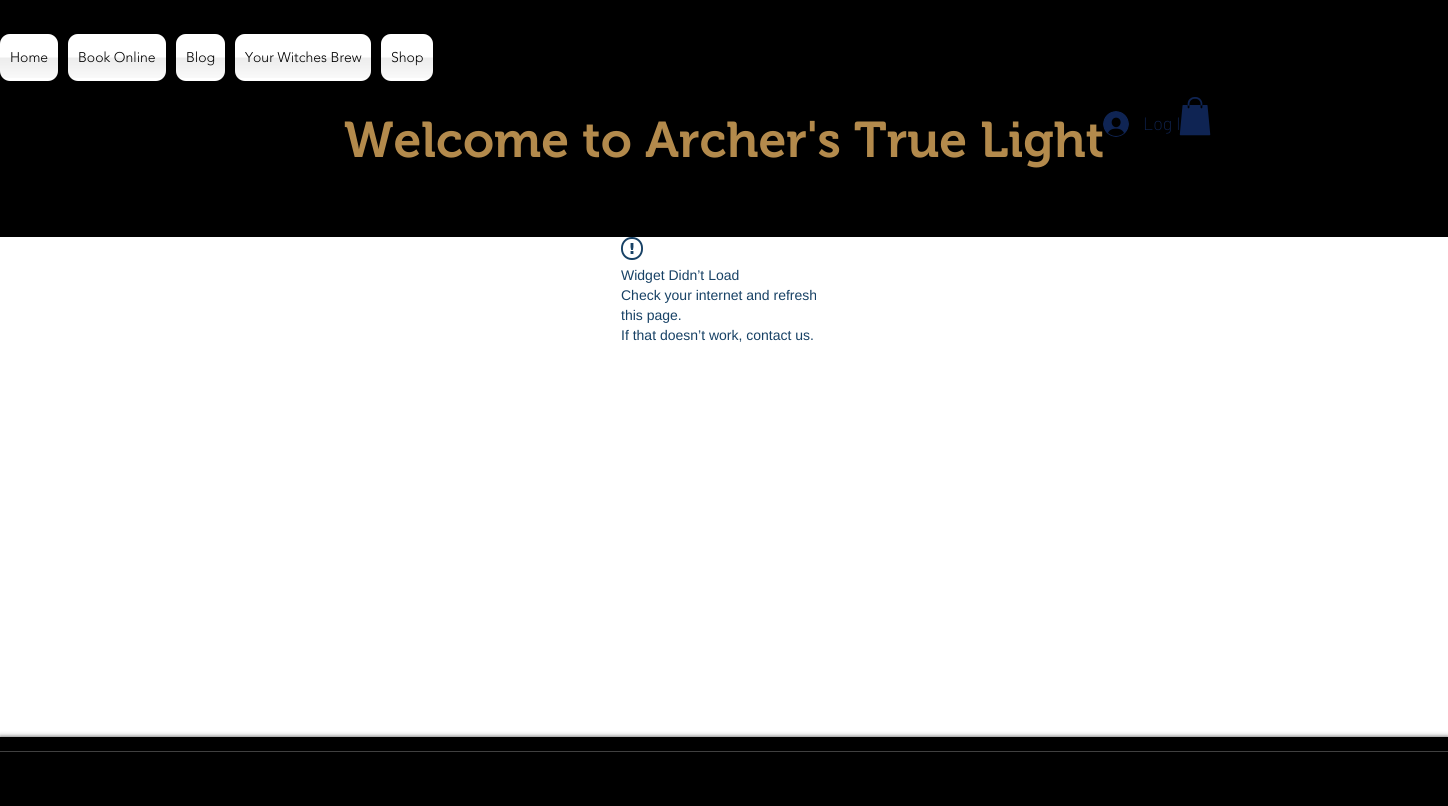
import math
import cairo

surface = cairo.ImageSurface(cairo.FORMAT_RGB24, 1448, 806)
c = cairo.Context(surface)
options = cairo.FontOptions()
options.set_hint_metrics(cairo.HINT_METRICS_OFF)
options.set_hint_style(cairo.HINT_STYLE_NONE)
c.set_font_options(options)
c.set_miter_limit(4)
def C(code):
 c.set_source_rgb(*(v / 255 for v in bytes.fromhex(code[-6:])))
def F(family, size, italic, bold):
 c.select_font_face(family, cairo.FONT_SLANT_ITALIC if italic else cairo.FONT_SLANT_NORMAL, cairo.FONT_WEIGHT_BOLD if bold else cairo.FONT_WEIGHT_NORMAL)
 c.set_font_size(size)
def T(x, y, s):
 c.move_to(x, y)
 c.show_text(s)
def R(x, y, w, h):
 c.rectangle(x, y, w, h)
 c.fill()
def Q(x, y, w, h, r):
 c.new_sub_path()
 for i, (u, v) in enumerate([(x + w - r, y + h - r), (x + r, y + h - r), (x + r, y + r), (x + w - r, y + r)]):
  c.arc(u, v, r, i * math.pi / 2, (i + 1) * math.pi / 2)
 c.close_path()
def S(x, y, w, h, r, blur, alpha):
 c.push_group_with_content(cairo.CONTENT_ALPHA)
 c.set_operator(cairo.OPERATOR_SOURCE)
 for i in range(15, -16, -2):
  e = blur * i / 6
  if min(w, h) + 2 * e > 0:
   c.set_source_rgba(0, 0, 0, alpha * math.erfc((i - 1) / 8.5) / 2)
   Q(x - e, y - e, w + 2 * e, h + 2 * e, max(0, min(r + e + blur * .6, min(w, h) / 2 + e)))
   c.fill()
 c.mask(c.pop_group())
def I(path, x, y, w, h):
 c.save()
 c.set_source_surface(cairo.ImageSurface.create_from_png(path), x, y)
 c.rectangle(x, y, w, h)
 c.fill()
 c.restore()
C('ffffff')
c.paint()
C('000000')
R(0,0,1448,237)
C('ffffff')
Q(0,34,58,47,10)
c.fill()
I('1.png',0,34,58,44)
F('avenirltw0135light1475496 Light',14,0,0)
C('000000')
T(10,62,'Home')
C('ffffff')
Q(68,34,98,47,10)
c.fill()
I('2.png',68,34,98,44)
C('000000')
T(78,62,'Book Online')
C('ffffff')
Q(176,34,49,47,10)
c.fill()
I('3.png',176,34,49,44)
C('000000')
T(186,62,'Blog')
C('ffffff')
Q(235,34,136,47,10)
c.fill()
I('4.png',235,34,136,44)
C('000000')
T(245,62,'Your Witches Brew')
C('ffffff')
Q(381,34,52,47,10)
c.fill()
I('5.png',381,34,52,44)
C('000000')
T(391,62,'Shop')
F('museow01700 SemiBold',50,0,0)
C('b38a4c')
T(344,157,'Welcome to Archer\'s True Light')
I('6.png',1103,111,26,26)
F('Barlow ExtraLight',18,0,0)
C('0f2453')
T(1143,130,'Log I')
I('7.png',1179,97,32,39)
I('8.png',621,237,22,23)
F('Liberation Sans',14,0,0)
C('174165')
T(621,280,'Widget Didn’t Load')
T(621,300,'Check your internet and refresh')
T(621,320,'this page.')
T(621,340,'If that doesn’t work, contact us.')
C('000000')
S(0,737,1448,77,0,2.5,.7)
C('000000')
R(0,737,1448,69)
C('404040')
R(0,751,1448,1)
surface.write_to_png('o.png')
